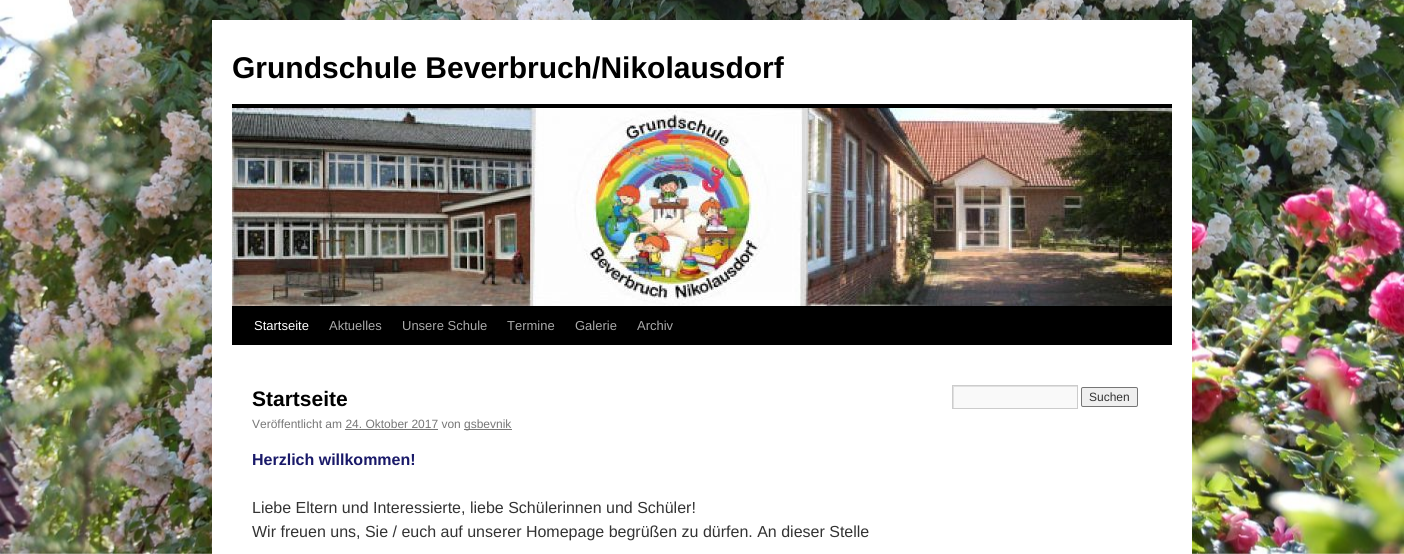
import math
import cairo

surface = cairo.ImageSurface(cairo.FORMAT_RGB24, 1404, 554)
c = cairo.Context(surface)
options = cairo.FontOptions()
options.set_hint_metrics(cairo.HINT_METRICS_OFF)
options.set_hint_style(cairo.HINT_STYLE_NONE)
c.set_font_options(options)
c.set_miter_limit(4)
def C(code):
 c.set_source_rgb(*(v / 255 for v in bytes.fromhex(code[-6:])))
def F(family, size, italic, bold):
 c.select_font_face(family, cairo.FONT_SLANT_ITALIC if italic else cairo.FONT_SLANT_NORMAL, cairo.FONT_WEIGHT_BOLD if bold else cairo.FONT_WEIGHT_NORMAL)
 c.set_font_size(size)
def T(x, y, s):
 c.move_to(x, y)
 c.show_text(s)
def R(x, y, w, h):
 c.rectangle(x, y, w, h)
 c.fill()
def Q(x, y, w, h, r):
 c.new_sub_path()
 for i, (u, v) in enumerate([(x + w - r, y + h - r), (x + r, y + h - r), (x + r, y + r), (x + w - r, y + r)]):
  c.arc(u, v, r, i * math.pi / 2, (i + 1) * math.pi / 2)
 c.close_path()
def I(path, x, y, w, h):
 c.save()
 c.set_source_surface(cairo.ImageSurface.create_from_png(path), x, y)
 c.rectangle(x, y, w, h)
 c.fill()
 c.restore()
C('ffffff')
c.paint()
I('1.png',0,0,1404,554)
C('ffffff')
R(212,20,980,534)
F('Liberation Sans',30,0,1)
C('000000')
T(232,78,'Grundschule Beverbruch/Nikolausdorf')
R(232,104,940,4)
R(232,306,940,39)
I('2.png',232,108,940,198)
F('Liberation Sans',13,0,0)
C('ffffff')
T(254,330,'Startseite')
C('aaaaaa')
T(329,330,'Aktuelles')
T(402,330,'Unsere Schule')
T(507,330,'Termine')
T(575,330,'Galerie')
T(637,330,'Archiv')
F('Liberation Sans',21,0,1)
C('000000')
T(252,406,'Startseite')
F('Liberation Sans',12,0,0)
C('777777')
T(252,428,'Veröffentlicht am 24. Oktober 2017 von')
R(464,429,48,1)
T(464,428,'gsbevnik')
R(345,429,93,1)
F('Liberation Sans',16,0,1)
C('191969')
T(252,465,'Herzlich willkommen!')
F('Liberation Sans',16,0,0)
C('333333')
T(252,513,'Liebe Eltern und Interessierte, liebe Schülerinnen und Schüler!')
T(252,537,'Wir freuen uns, Sie / euch auf unserer Homepage begrüßen zu dürfen. An dieser Stelle')
C('f9f9f9')
R(954,387,123,21)
c.save()
c.rectangle(953,386,124,22)
c.clip()
C('e0e0e0')
c.set_fill_rule(cairo.FILL_RULE_EVEN_ODD)
c.new_path()
c.move_to(854,287)
c.line_to(1176,287)
c.line_to(1176,507)
c.line_to(854,507)
c.close_path()
c.move_to(954,387)
c.line_to(1078,387)
c.line_to(1078,409)
c.line_to(954,409)
c.close_path()
c.fill()
c.restore()
c.rectangle(952.5,385.5,125,23)
C('cccccc')
c.set_line_width(1)
c.stroke()
C('efefef')
Q(1081.5,387.5,56,19,1.5)
c.fill_preserve()
C('767676')
c.stroke()
F('Liberation Sans',12,0,0)
C('333333')
T(1089,401,'Suchen')
surface.write_to_png('o.png')
